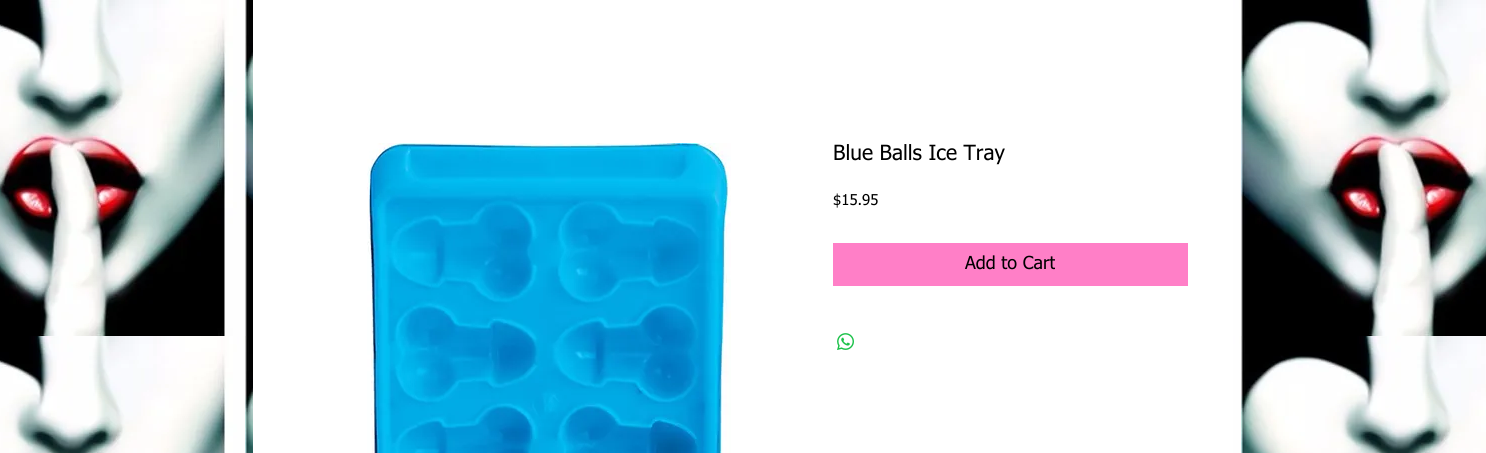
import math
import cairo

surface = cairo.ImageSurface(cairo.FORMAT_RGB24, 1486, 453)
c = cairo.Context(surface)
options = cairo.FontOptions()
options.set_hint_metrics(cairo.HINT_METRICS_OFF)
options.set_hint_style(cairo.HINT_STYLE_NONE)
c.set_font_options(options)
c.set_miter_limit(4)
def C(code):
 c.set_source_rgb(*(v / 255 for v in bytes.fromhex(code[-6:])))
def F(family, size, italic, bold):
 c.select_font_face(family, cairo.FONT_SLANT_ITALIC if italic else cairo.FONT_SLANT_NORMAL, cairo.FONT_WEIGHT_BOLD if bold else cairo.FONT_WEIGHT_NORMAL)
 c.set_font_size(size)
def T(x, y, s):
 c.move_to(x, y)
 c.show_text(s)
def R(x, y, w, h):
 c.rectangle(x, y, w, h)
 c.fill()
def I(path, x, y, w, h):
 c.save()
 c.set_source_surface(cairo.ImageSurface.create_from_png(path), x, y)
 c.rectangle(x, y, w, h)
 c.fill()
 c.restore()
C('ffffff')
c.paint()
I('1.png',0,0,1486,453)
C('ffffff')
R(253,0,980,453)
I('2.png',367,143,364,310)
F('tahoma',21,0,0)
C('000000')
T(833,160,'Blue Balls Ice Tray')
F('tahoma',15,0,0)
T(833,205,'$15.95')
C('ff7fc7')
R(833,243,355,43)
F('tahoma',18,0,0)
C('000000')
T(965,269,'Add to Cart')
I('3.png',837,333,17,17)
surface.write_to_png('o.png')
